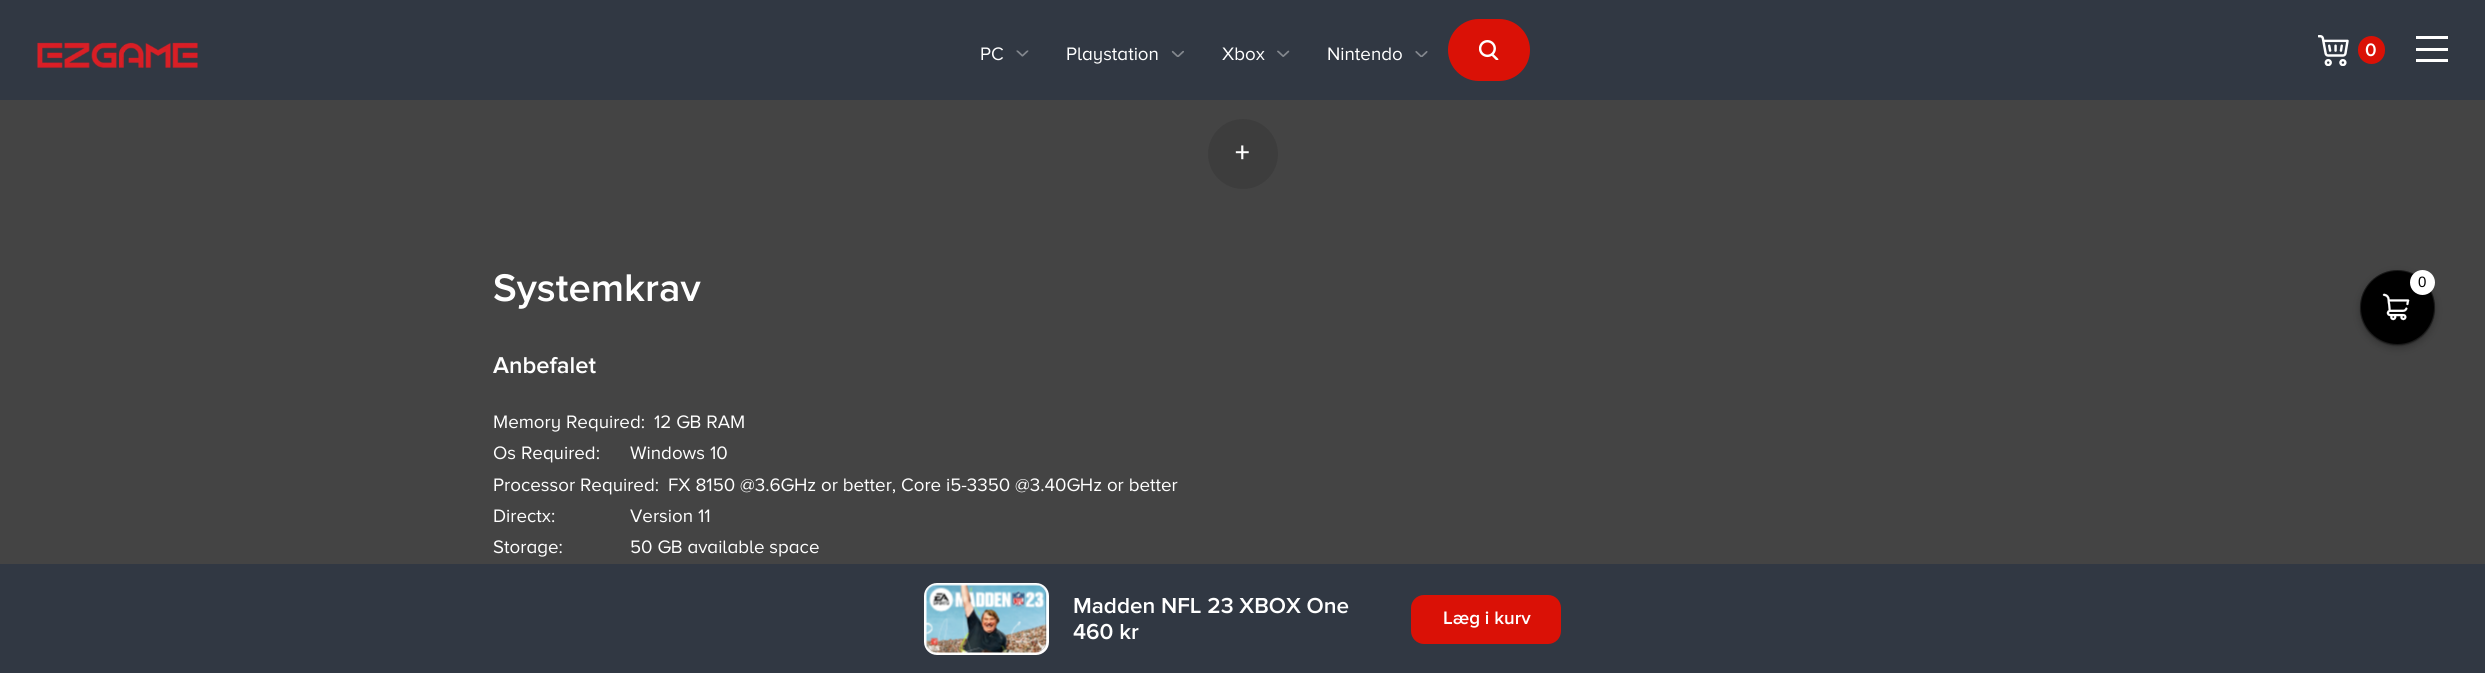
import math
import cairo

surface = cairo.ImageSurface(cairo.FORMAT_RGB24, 2485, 673)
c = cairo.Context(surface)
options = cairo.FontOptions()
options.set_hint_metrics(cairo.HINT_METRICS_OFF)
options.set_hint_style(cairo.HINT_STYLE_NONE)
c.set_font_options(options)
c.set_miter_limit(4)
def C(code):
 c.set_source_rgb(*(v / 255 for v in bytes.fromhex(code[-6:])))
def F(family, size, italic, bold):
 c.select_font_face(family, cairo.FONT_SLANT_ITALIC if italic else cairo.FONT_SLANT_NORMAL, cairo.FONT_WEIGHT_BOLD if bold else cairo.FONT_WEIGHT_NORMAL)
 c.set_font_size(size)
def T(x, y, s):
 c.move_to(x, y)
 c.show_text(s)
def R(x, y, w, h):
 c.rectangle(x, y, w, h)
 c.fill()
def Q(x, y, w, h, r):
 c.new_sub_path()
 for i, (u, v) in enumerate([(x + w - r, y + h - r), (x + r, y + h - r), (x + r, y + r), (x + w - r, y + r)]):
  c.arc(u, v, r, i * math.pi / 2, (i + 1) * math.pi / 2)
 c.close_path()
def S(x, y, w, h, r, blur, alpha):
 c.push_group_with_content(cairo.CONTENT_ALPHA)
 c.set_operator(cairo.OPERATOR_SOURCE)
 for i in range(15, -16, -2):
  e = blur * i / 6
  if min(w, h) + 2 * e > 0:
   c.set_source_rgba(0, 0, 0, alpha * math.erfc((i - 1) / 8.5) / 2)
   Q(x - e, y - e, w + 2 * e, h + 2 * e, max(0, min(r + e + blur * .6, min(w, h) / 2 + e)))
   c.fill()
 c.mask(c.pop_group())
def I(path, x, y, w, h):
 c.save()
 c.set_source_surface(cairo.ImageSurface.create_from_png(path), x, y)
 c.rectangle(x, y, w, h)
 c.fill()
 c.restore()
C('444444')
c.paint()
C('313843')
R(0,0,2485,100)
I('1.png',37,42,161,26)
F('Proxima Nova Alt',18.75,0,0)
C('ffffff')
T(980,60,'PC')
I('2.png',1016,50,13,7)
T(1066,60,'Playstation')
I('3.png',1171,50,13,7)
T(1222,60,'Xbox')
I('4.png',1277,50,13,7)
T(1327,60,'Nintendo')
I('5.png',1415,51,13,6)
C('da1106')
Q(1448,19,82,62,31)
c.fill()
I('6.png',1479,40,20,20)
I('7.png',2318,35,31,31)
Q(2358,36,27,28,13.5)
c.fill()
F('Proxima Nova SemiBold',18.75,0,0)
C('ffffff')
T(2365,56,'0')
R(2416,48,32,3)
R(2416,36,32,3)
R(2416,59,32,3)
C('3d3d3d')
c.new_path()
c.arc(1243,154,35,0,2 * math.pi)
c.fill()
F('Proxima Nova SemiBold',29,0,0)
C('ffffff')
T(1235,162,'+')
F('Proxima Nova SemiBold',40,0,0)
T(493,301,'Systemkrav')
F('Proxima Nova SemiBold',23.75,0,0)
T(493,373,'Anbefalet')
F('Proxima Nova Alt',18.75,0,0)
T(493,428,'Memory Required:')
T(654,428,'12 GB RAM')
T(493,459,'Os Required:')
T(630,459,'Windows 10')
T(493,491,'Processor Required:')
T(668,491,'FX 8150 @3.6GHz or better, Core i5-3350 @3.40GHz or better')
T(493,522,'Directx:')
T(630,522,'Version 11')
T(493,553,'Storage:')
T(630,553,'50 GB available space')
C('313843')
R(0,564,2485,109)
Q(925.5,584.5,122,69,11.5)
C('ffffff')
c.set_line_width(3)
c.stroke()
I('8.png',925,584,122,69)
F('Proxima Nova SemiBold',22.5,0,0)
T(1073,613,'Madden NFL 23 XBOX One')
T(1073,639,'460 kr')
C('da1106')
Q(1411,595,150,49,13)
c.fill()
F('Proxima Nova SemiBold',18.75,0,0)
C('ffffff')
T(1443,624,'Læg i kurv')
C('000000')
S(2360,273,75,75,37.5,4,.25)
S(2360,271,75,75,37.5,.5,.25)
C('000000')
c.arc(2397.5,307.5,37.5,0,2 * math.pi)
c.fill()
c.arc(2397.5,307.5,37,0,2 * math.pi)
c.set_source_rgba(1,1,1,0.1)
c.set_line_width(1)
c.stroke()
C('ffffff')
c.arc(2422.5,282.5,12.5,0,2 * math.pi)
c.fill()
F('Liberation Sans',15,0,0)
C('000000')
T(2418,287,'0')
I('9.png',2382,293,28,28)
surface.write_to_png('o.png')
